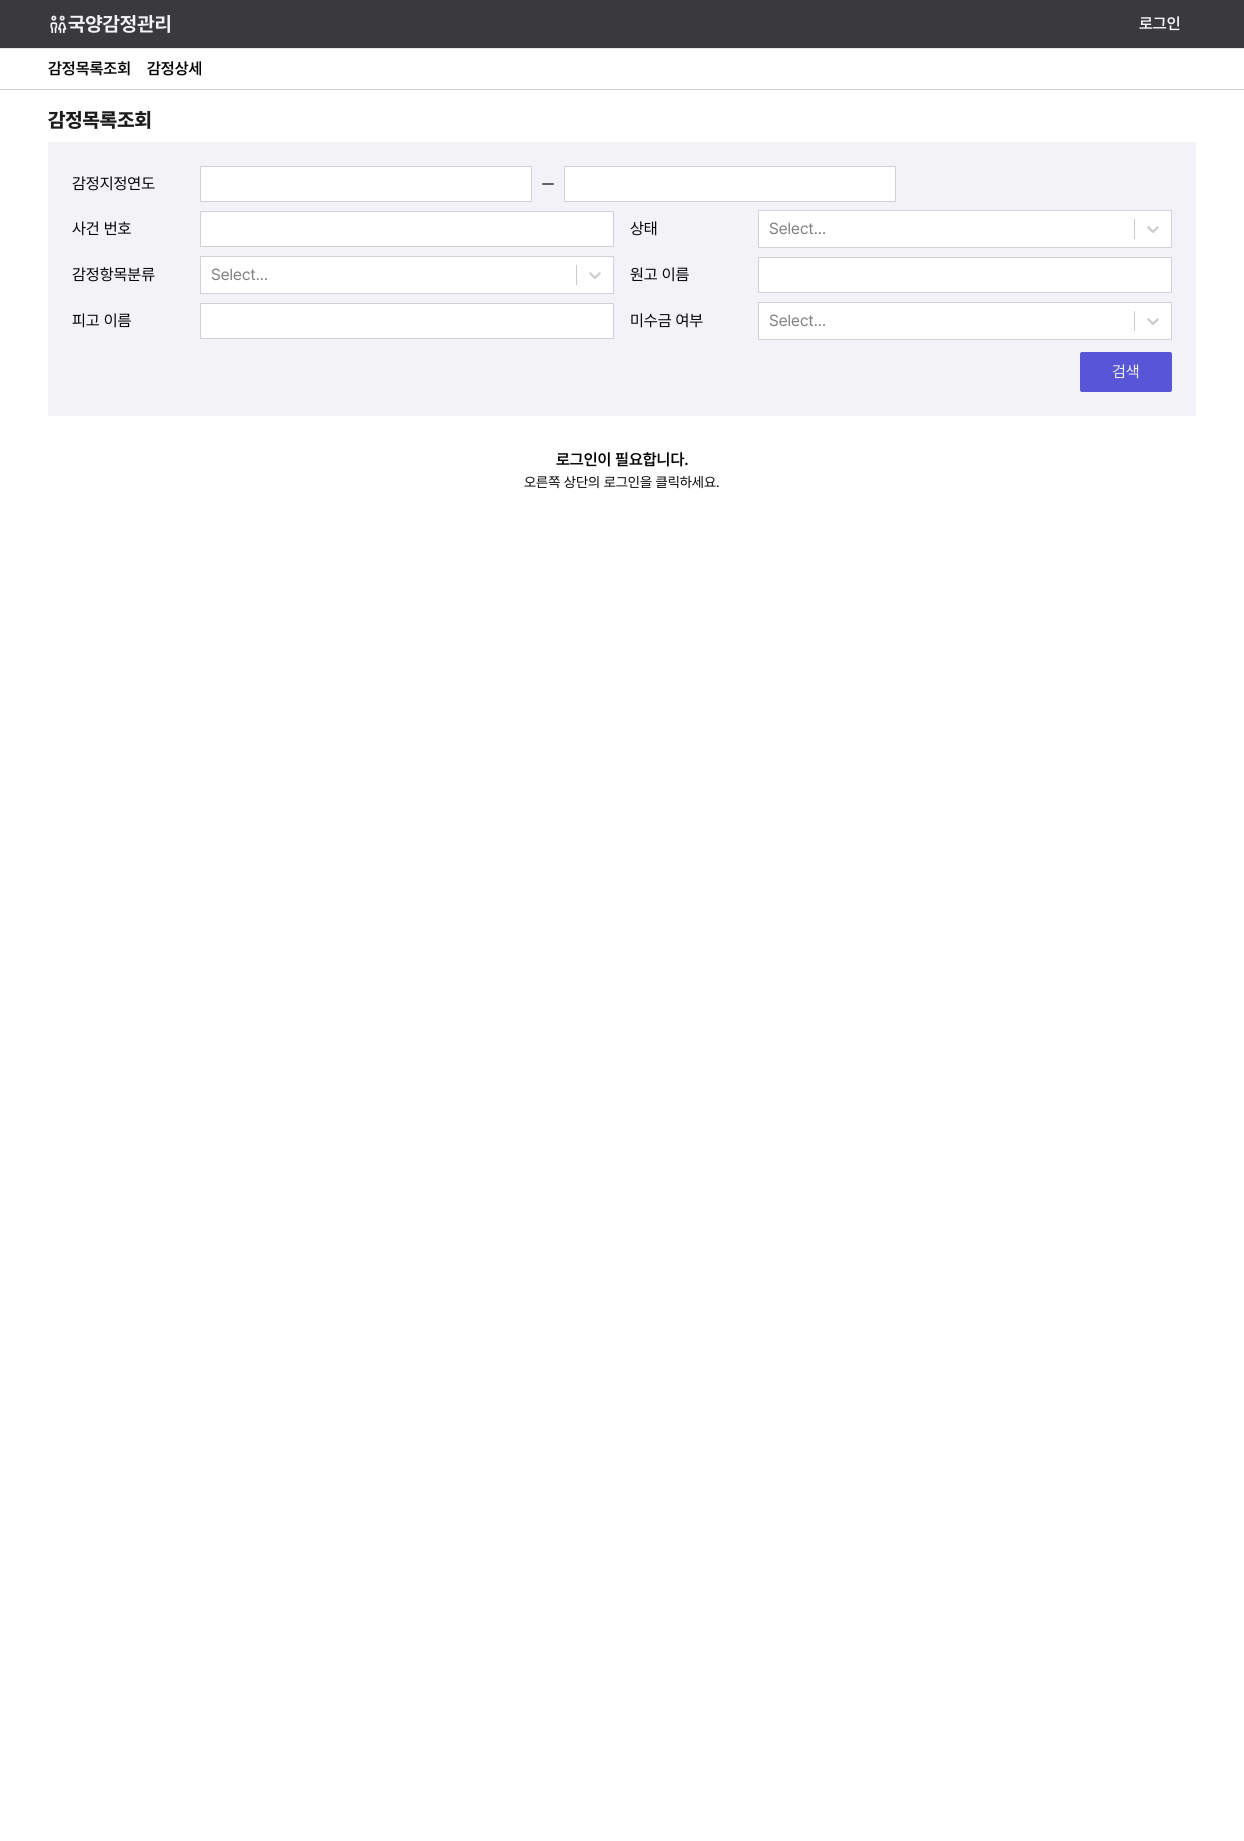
import math
import cairo

surface = cairo.ImageSurface(cairo.FORMAT_RGB24, 1244, 1841)
c = cairo.Context(surface)
options = cairo.FontOptions()
options.set_hint_metrics(cairo.HINT_METRICS_OFF)
options.set_hint_style(cairo.HINT_STYLE_NONE)
c.set_font_options(options)
c.set_miter_limit(4)
def C(code):
 c.set_source_rgb(*(v / 255 for v in bytes.fromhex(code[-6:])))
def F(family, size, italic, bold):
 c.select_font_face(family, cairo.FONT_SLANT_ITALIC if italic else cairo.FONT_SLANT_NORMAL, cairo.FONT_WEIGHT_BOLD if bold else cairo.FONT_WEIGHT_NORMAL)
 c.set_font_size(size)
def T(x, y, s):
 c.move_to(x, y)
 c.show_text(s)
def R(x, y, w, h):
 c.rectangle(x, y, w, h)
 c.fill()
def Q(x, y, w, h, r):
 c.new_sub_path()
 for i, (u, v) in enumerate([(x + w - r, y + h - r), (x + r, y + h - r), (x + r, y + r), (x + w - r, y + r)]):
  c.arc(u, v, r, i * math.pi / 2, (i + 1) * math.pi / 2)
 c.close_path()
def I(path, x, y, w, h):
 c.save()
 c.set_source_surface(cairo.ImageSurface.create_from_png(path), x, y)
 c.rectangle(x, y, w, h)
 c.fill()
 c.restore()
C('ffffff')
c.paint()
C('3a3a3c')
R(0,0,1244,48)
C('e5e7eb')
R(0,48,1244,1)
I('1.png',50,15,17,19)
F('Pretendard',20,0,1)
C('f2f2f7')
T(68,31,'국양감정관리')
F('Pretendard SemiBold',16,0,0)
T(1139,29,'로그인')
C('d1d1d6')
R(0,89,1244,1)
C('000000')
T(48,74,'감정목록조회')
T(147,74,'감정상세')
F('Pretendard ExtraBold',20,0,0)
C('1c1c1e')
T(48,127,'감정목록조회')
C('f2f2f7')
R(48,142,1148,274)
F('Pretendard',16,0,0)
C('000000')
T(72,189,'감정지정연도')
C('ffffff')
c.rectangle(200.5,166.5,331,35)
c.fill_preserve()
C('d1d1d6')
c.set_line_width(1)
c.stroke()
I('2.png',542,183,12,2)
C('ffffff')
c.rectangle(564.5,166.5,331,35)
c.fill_preserve()
C('d1d1d6')
c.stroke()
C('000000')
T(72,234,'사건 번호')
C('ffffff')
c.rectangle(200.5,211.5,413,35)
c.fill_preserve()
C('d1d1d6')
c.stroke()
C('000000')
T(630,234,'상태')
C('ffffff')
c.rectangle(758.5,210.5,413,37)
c.fill_preserve()
C('d1d1d6')
c.stroke()
C('808080')
T(769,234,'Select...')
C('cccccc')
R(1134,219,1,20)
I('3.png',1147,226,12,7)
C('000000')
T(72,280,'감정항목분류')
C('ffffff')
c.rectangle(200.5,256.5,413,37)
c.fill_preserve()
C('d1d1d6')
c.stroke()
C('808080')
T(211,280,'Select...')
C('cccccc')
R(576,265,1,20)
I('3.png',589,272,12,7)
C('000000')
T(630,280,'원고 이름')
C('ffffff')
c.rectangle(758.5,257.5,413,35)
c.fill_preserve()
C('d1d1d6')
c.stroke()
C('000000')
T(72,326,'피고 이름')
C('ffffff')
c.rectangle(200.5,303.5,413,35)
c.fill_preserve()
C('d1d1d6')
c.stroke()
C('000000')
T(630,326,'미수금 여부')
C('ffffff')
c.rectangle(758.5,302.5,413,37)
c.fill_preserve()
C('d1d1d6')
c.stroke()
C('808080')
T(769,326,'Select...')
C('cccccc')
R(1134,311,1,20)
I('3.png',1147,318,12,7)
C('5856d6')
Q(1080,352,92,40,2)
c.fill()
C('f2f2f7')
T(1112,377,'검색')
F('Pretendard SemiBold',16,0,0)
C('000000')
T(556,465,'로그인이 필요합니다.')
F('Pretendard',14,0,0)
T(524,487,'오른쪽 상단의 로그인을 클릭하세요.')
surface.write_to_png('o.png')
